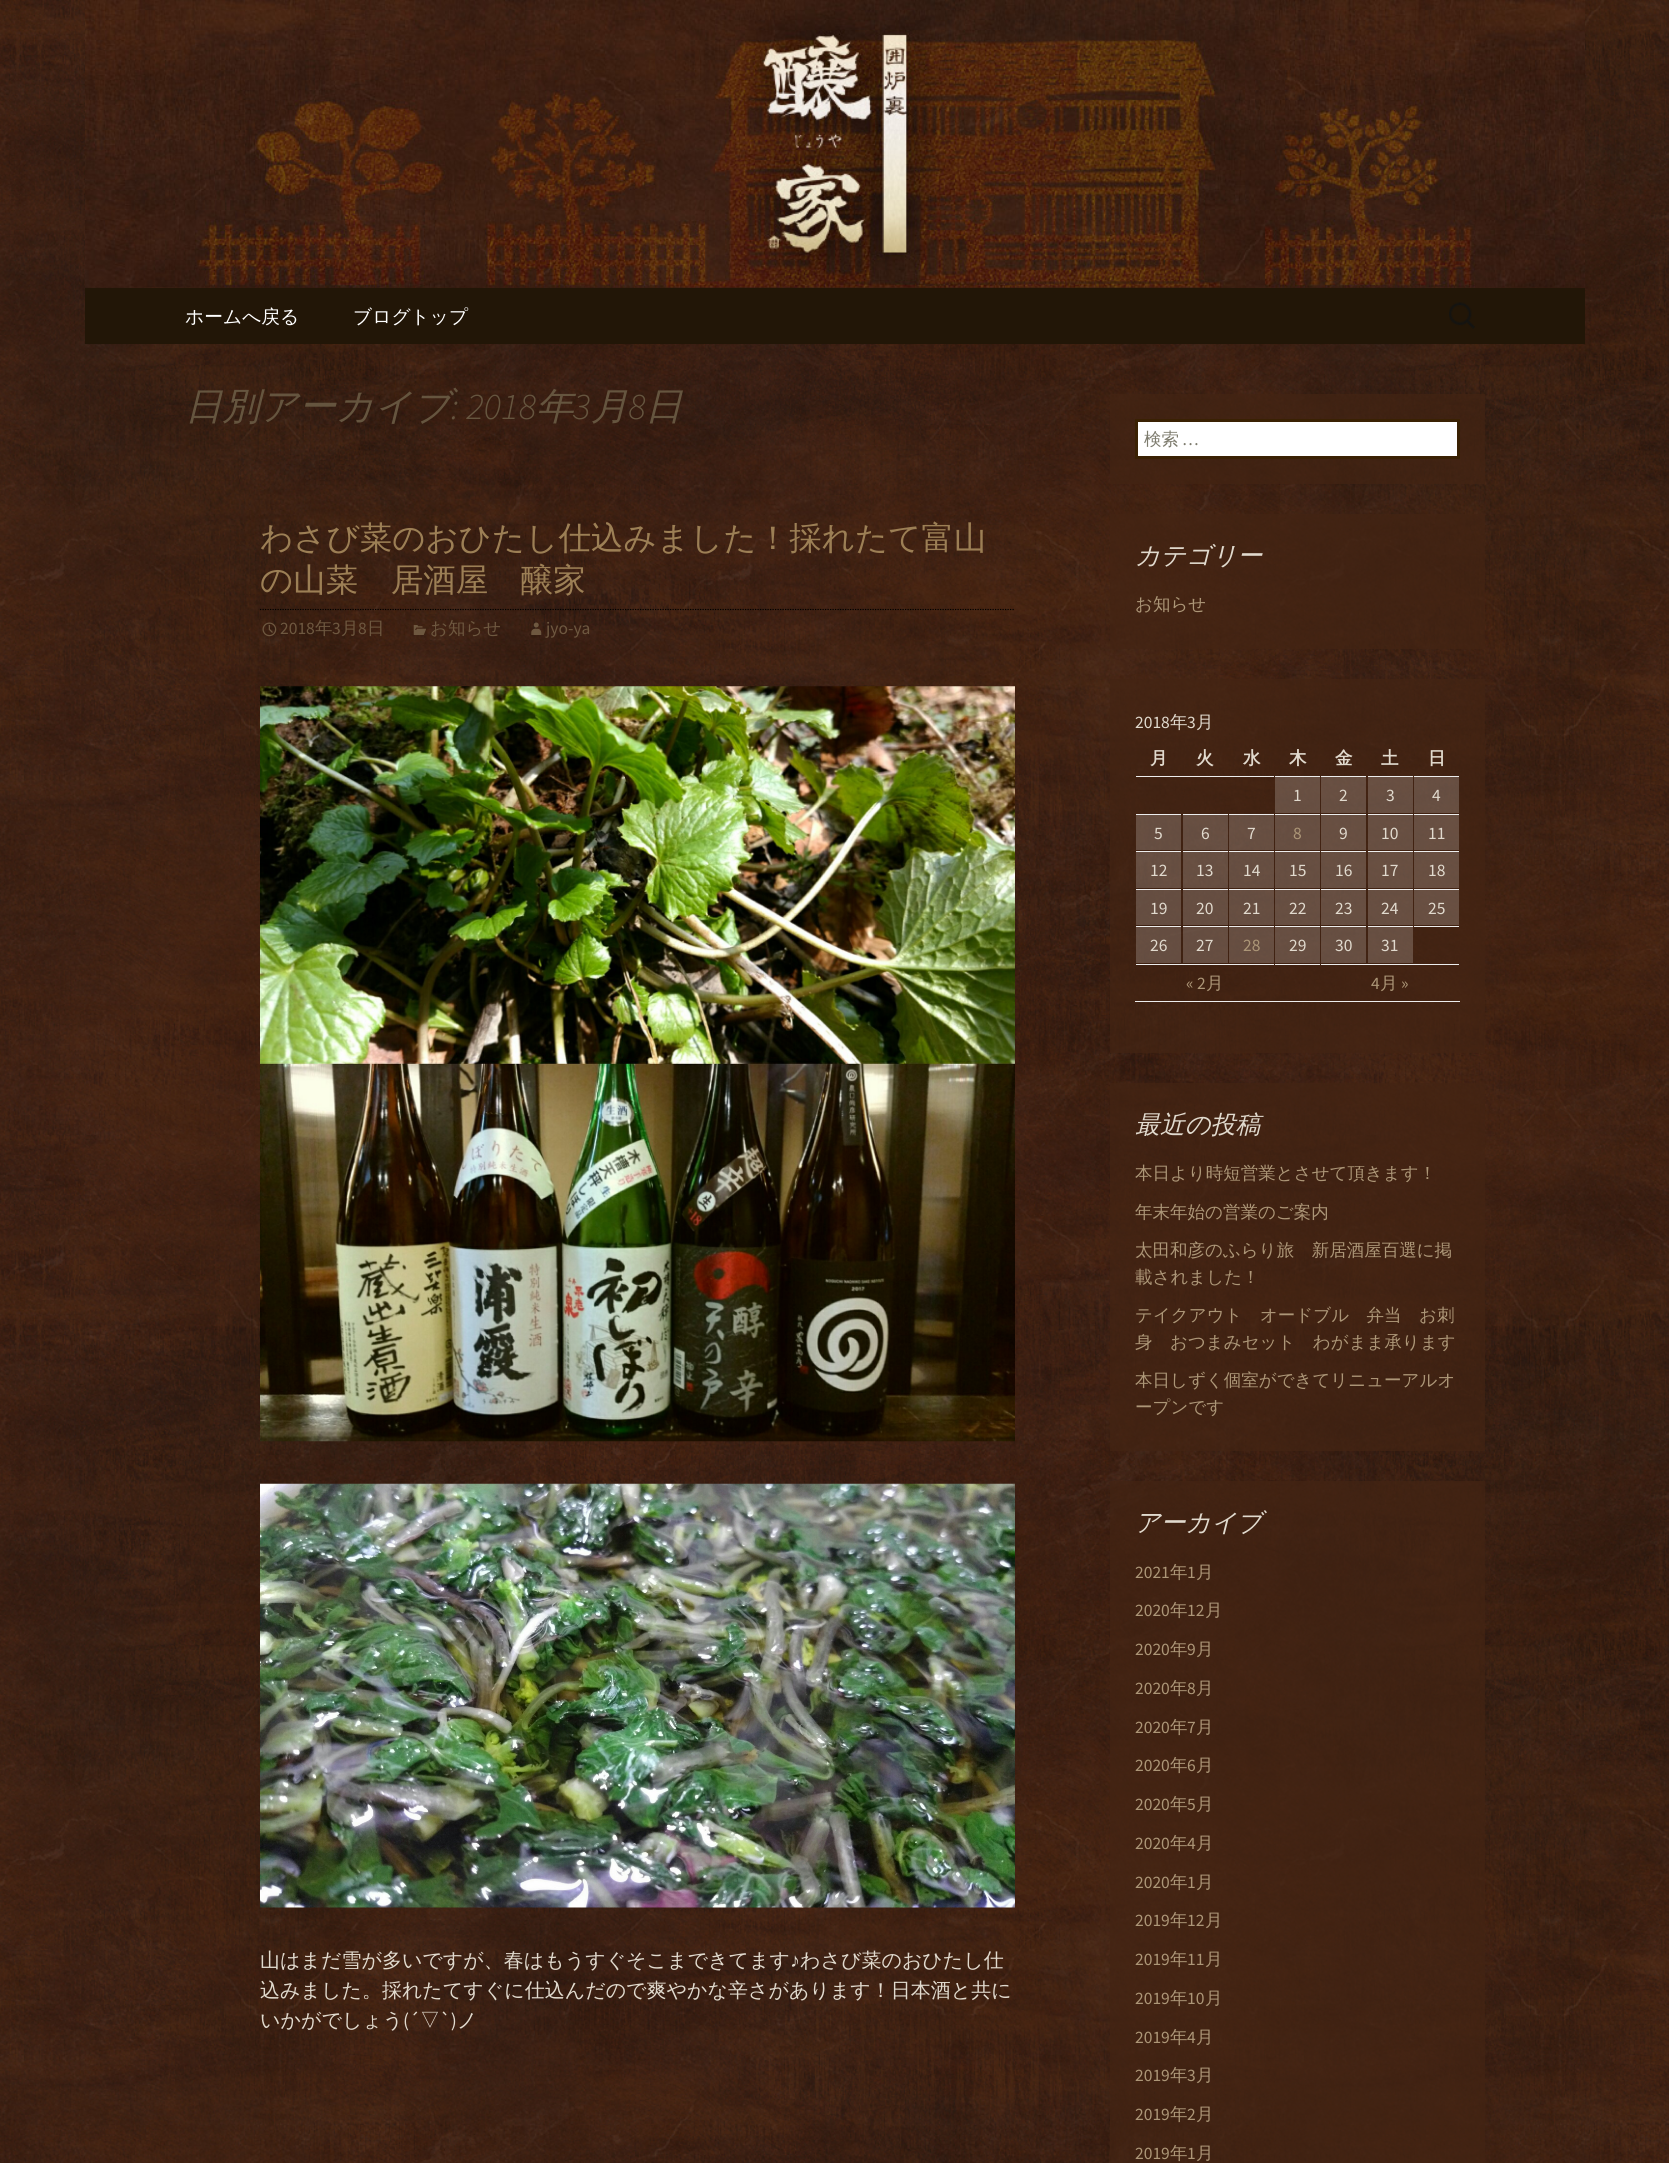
import math
import cairo

surface = cairo.ImageSurface(cairo.FORMAT_RGB24, 1669, 2163)
c = cairo.Context(surface)
options = cairo.FontOptions()
options.set_hint_metrics(cairo.HINT_METRICS_OFF)
options.set_hint_style(cairo.HINT_STYLE_NONE)
c.set_font_options(options)
c.set_miter_limit(4)
def C(code):
 c.set_source_rgb(*(v / 255 for v in bytes.fromhex(code[-6:])))
def F(family, size, italic, bold):
 c.select_font_face(family, cairo.FONT_SLANT_ITALIC if italic else cairo.FONT_SLANT_NORMAL, cairo.FONT_WEIGHT_BOLD if bold else cairo.FONT_WEIGHT_NORMAL)
 c.set_font_size(size)
def T(x, y, s):
 c.move_to(x, y)
 c.show_text(s)
def R(x, y, w, h):
 c.rectangle(x, y, w, h)
 c.fill()
def I(path, x, y, w, h):
 c.save()
 c.set_source_surface(cairo.ImageSurface.create_from_png(path), x, y)
 c.rectangle(x, y, w, h)
 c.fill()
 c.restore()
C('ffffff')
c.paint()
I('1.png',0,0,1669,2163)
I('2.png',85,0,1500,288)
C('221607')
R(85,288,1500,56)
F('WenQuanYi Zen Hei Medium',18.75,0,0)
C('ffffff')
T(185,323,'ホームへ戻る')
T(353,323,'ブログトップ')
I('3.png',1449,302,26,27)
F('WenQuanYi Zen Hei Medium',37.5,1,0)
C('65553f')
T(185,419,'日別アーカイブ')
F('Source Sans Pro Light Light',37.5,1,0)
T(451,419,': 2018')
F('WenQuanYi Zen Hei Medium',37.5,1,0)
T(536,419,'年')
F('Source Sans Pro Light Light',37.5,1,0)
T(573,419,'3')
F('WenQuanYi Zen Hei Medium',37.5,1,0)
T(591,419,'月')
F('Source Sans Pro Light Light',37.5,1,0)
T(628,419,'8')
F('WenQuanYi Zen Hei Medium',37.5,1,0)
T(645,419,'日')
c.new_path()
c.move_to(260,609.5)
c.line_to(1015,609.5)
C('000000')
c.set_line_width(1.2)
c.set_dash([1.25,1.25])
c.stroke()
F('WenQuanYi Zen Hei Medium',32.5,0,0)
C('9c7f55')
T(260,549,'わさび菜のおひたし仕込みました！採れたて富山')
T(260,591,'の山菜　居酒屋　醸家')
I('4.png',262,622,15,15)
F('Source Sans Pro',17.5,0,0)
C('6e5840')
T(280,634,'2018')
F('WenQuanYi Zen Hei Medium',17.5,0,0)
T(315,634,'年')
F('Source Sans Pro',17.5,0,0)
T(332,634,'3')
F('WenQuanYi Zen Hei Medium',17.5,0,0)
T(341,634,'月')
F('Source Sans Pro',17.5,0,0)
T(358,634,'8')
F('WenQuanYi Zen Hei Medium',17.5,0,0)
T(367,634,'日')
I('5.png',413,625,13,10)
T(430,634,'お知らせ')
I('6.png',531,622,11,13)
F('Source Sans Pro',17.5,0,0)
T(546,634,'jyo-ya')
I('7.png',260,686,755,756)
I('8.png',260,1483,755,425)
F('WenQuanYi Zen Hei Medium',20,0,0)
C('e1dace')
T(260,1967,'山はまだ雪が多いですが、春はもうすぐそこまできてます')
F('Liberation Sans',20,0,0)
T(790,1967,'♪')
F('WenQuanYi Zen Hei Medium',20,0,0)
T(800,1967,'わさび菜のおひたし仕')
T(260,1997,'込みました。採れたてすぐに仕込んだので爽やかな辛さがあります！日本酒と共に')
T(260,2027,'いかがでしょう')
F('Source Sans Pro',20,0,0)
T(403,2027,'(´')
F('WenQuanYi Zen Hei Medium',20,0,0)
T(420,2027,'▽')
F('Source Sans Pro',20,0,0)
T(440,2027,'`)')
F('WenQuanYi Zen Hei Medium',20,0,0)
T(457,2027,'ノ')
c.set_source_rgba(0.267,0.145,0.075,0.7)
R(1110,394,375,90)
C('ffffff')
c.rectangle(1136.5,420.5,322,37)
c.fill_preserve()
C('3a2103')
c.set_line_width(3)
c.set_dash([])
c.stroke()
F('WenQuanYi Zen Hei Medium',17.5,0,0)
C('7d7b6d')
T(1144,445,'検索')
F('Source Sans Pro',17.5,0,0)
T(1182,445,'…')
c.set_source_rgba(0.267,0.145,0.075,0.7)
R(1110,514,375,135)
F('WenQuanYi Zen Hei Medium',25,1,0)
C('e1dace')
T(1135,564,'カテゴリー')
F('WenQuanYi Zen Hei Medium',17.5,0,0)
C('ac9677')
T(1135,610,'お知らせ')
c.set_source_rgba(0.267,0.145,0.075,0.7)
R(1110,679,375,374)
C('ededed')
R(1135,1001,325,1)
F('Source Sans Pro',17.5,0,0)
C('e1dace')
T(1135,728,'2018')
F('WenQuanYi Zen Hei Medium',17.5,0,0)
T(1170,728,'年')
F('Source Sans Pro',17.5,0,0)
T(1187,728,'3')
F('WenQuanYi Zen Hei Medium',17.5,0,0)
T(1196,728,'月')
F('WenQuanYi Zen Hei',17.5,0,1)
T(1150,764,'月')
T(1196,764,'火')
T(1243,764,'水')
T(1289,764,'木')
T(1335,764,'金')
T(1381,764,'土')
T(1428,764,'日')
C('ededed')
R(1136,776,138,1)
c.set_source_rgba(1,1,1,0.2)
R(1275,777,45,36)
C('ededed')
R(1275,776,45,1)
F('Source Sans Pro',17.5,0,0)
C('e1dace')
T(1293,801,'1')
c.set_source_rgba(1,1,1,0.2)
R(1321,777,45,36)
C('ededed')
R(1321,776,45,1)
C('e1dace')
T(1339,801,'2')
c.set_source_rgba(1,1,1,0.2)
R(1368,777,45,36)
C('ededed')
R(1368,776,45,1)
C('e1dace')
T(1386,801,'3')
c.set_source_rgba(1,1,1,0.2)
R(1414,777,45,36)
C('ededed')
R(1414,776,45,1)
C('e1dace')
T(1432,801,'4')
c.set_source_rgba(1,1,1,0.2)
R(1136,815,45,35)
C('ededed')
R(1136,814,45,1)
C('e1dace')
T(1154,839,'5')
c.set_source_rgba(1,1,1,0.2)
R(1183,815,45,35)
C('ededed')
R(1183,814,45,1)
C('e1dace')
T(1201,839,'6')
c.set_source_rgba(1,1,1,0.2)
R(1229,815,45,35)
C('ededed')
R(1229,814,45,1)
C('e1dace')
T(1247,839,'7')
c.set_source_rgba(1,1,1,0.2)
R(1275,815,45,35)
C('ededed')
R(1275,814,45,1)
C('ac9677')
T(1293,839,'8')
c.set_source_rgba(1,1,1,0.2)
R(1321,815,45,35)
C('ededed')
R(1321,814,45,1)
C('e1dace')
T(1339,839,'9')
c.set_source_rgba(1,1,1,0.2)
R(1368,815,45,35)
C('ededed')
R(1368,814,45,1)
C('e1dace')
T(1381,839,'10')
c.set_source_rgba(1,1,1,0.2)
R(1414,815,45,35)
C('ededed')
R(1414,814,45,1)
C('e1dace')
T(1428,839,'11')
c.set_source_rgba(1,1,1,0.2)
R(1136,852,45,36)
C('ededed')
R(1136,851,45,1)
C('e1dace')
T(1150,876,'12')
c.set_source_rgba(1,1,1,0.2)
R(1183,852,45,36)
C('ededed')
R(1183,851,45,1)
C('e1dace')
T(1196,876,'13')
c.set_source_rgba(1,1,1,0.2)
R(1229,852,45,36)
C('ededed')
R(1229,851,45,1)
C('e1dace')
T(1243,876,'14')
c.set_source_rgba(1,1,1,0.2)
R(1275,852,45,36)
C('ededed')
R(1275,851,45,1)
C('e1dace')
T(1289,876,'15')
c.set_source_rgba(1,1,1,0.2)
R(1321,852,45,36)
C('ededed')
R(1321,851,45,1)
C('e1dace')
T(1335,876,'16')
c.set_source_rgba(1,1,1,0.2)
R(1368,852,45,36)
C('ededed')
R(1368,851,45,1)
C('e1dace')
T(1381,876,'17')
c.set_source_rgba(1,1,1,0.2)
R(1414,852,45,36)
C('ededed')
R(1414,851,45,1)
C('e1dace')
T(1428,876,'18')
c.set_source_rgba(1,1,1,0.2)
R(1136,890,45,35)
C('ededed')
R(1136,889,45,1)
C('e1dace')
T(1150,914,'19')
c.set_source_rgba(1,1,1,0.2)
R(1183,890,45,35)
C('ededed')
R(1183,889,45,1)
C('e1dace')
T(1196,914,'20')
c.set_source_rgba(1,1,1,0.2)
R(1229,890,45,35)
C('ededed')
R(1229,889,45,1)
C('e1dace')
T(1243,914,'21')
c.set_source_rgba(1,1,1,0.2)
R(1275,890,45,35)
C('ededed')
R(1275,889,45,1)
C('e1dace')
T(1289,914,'22')
c.set_source_rgba(1,1,1,0.2)
R(1321,890,45,35)
C('ededed')
R(1321,889,45,1)
C('e1dace')
T(1335,914,'23')
c.set_source_rgba(1,1,1,0.2)
R(1368,890,45,35)
C('ededed')
R(1368,889,45,1)
C('e1dace')
T(1381,914,'24')
c.set_source_rgba(1,1,1,0.2)
R(1414,890,45,35)
C('ededed')
R(1414,889,45,1)
C('e1dace')
T(1428,914,'25')
C('ededed')
R(1414,926,45,1)
c.set_source_rgba(1,1,1,0.2)
R(1136,927,45,36)
C('ededed')
R(1136,926,45,1)
C('e1dace')
T(1150,951,'26')
c.set_source_rgba(1,1,1,0.2)
R(1183,927,45,36)
C('ededed')
R(1183,926,45,1)
C('e1dace')
T(1196,951,'27')
c.set_source_rgba(1,1,1,0.2)
R(1229,927,45,36)
C('ededed')
R(1229,926,45,1)
C('ac9677')
T(1243,951,'28')
c.set_source_rgba(1,1,1,0.2)
R(1275,927,45,36)
C('ededed')
R(1275,926,45,1)
C('e1dace')
T(1289,951,'29')
c.set_source_rgba(1,1,1,0.2)
R(1321,927,45,36)
C('ededed')
R(1321,926,45,1)
C('e1dace')
T(1335,951,'30')
c.set_source_rgba(1,1,1,0.2)
R(1368,927,45,36)
C('ededed')
R(1368,926,45,1)
C('e1dace')
T(1381,951,'31')
C('ededed')
R(1275,964,45,1)
R(1136,964,138,1)
C('ac9677')
T(1186,989,'« 2')
F('WenQuanYi Zen Hei Medium',17.5,0,0)
T(1206,989,'月')
C('ededed')
R(1321,964,138,1)
F('Source Sans Pro',17.5,0,0)
C('ac9677')
T(1371,989,'4')
F('WenQuanYi Zen Hei Medium',17.5,0,0)
T(1380,989,'月')
F('Source Sans Pro',17.5,0,0)
T(1401,989,'»')
c.set_source_rgba(0.267,0.145,0.075,0.7)
R(1110,1083,375,368)
F('WenQuanYi Zen Hei Medium',25,1,0)
C('e1dace')
T(1135,1133,'最近の投稿')
F('WenQuanYi Zen Hei Medium',17.5,0,0)
C('ac9677')
T(1135,1179,'本日より時短営業とさせて頂きます！')
T(1135,1218,'年末年始の営業のご案内')
T(1135,1256,'太田和彦のふらり旅　新居酒屋百選に掲')
T(1135,1283,'載されました！')
T(1135,1321,'テイクアウト　オードブル　弁当　お刺')
T(1135,1348,'身　おつまみセット　わがまま承ります')
T(1135,1386,'本日しずく個室ができてリニューアルオ')
T(1135,1413,'ープンです')
c.set_source_rgba(0.267,0.145,0.075,0.7)
R(1110,1481,375,682)
F('WenQuanYi Zen Hei Medium',25,1,0)
C('e1dace')
T(1135,1531,'アーカイブ')
F('Source Sans Pro',17.5,0,0)
C('ac9677')
T(1135,1578,'2021')
F('WenQuanYi Zen Hei Medium',17.5,0,0)
T(1170,1578,'年')
F('Source Sans Pro',17.5,0,0)
T(1187,1578,'1')
F('WenQuanYi Zen Hei Medium',17.5,0,0)
T(1196,1578,'月')
F('Source Sans Pro',17.5,0,0)
T(1135,1616,'2020')
F('WenQuanYi Zen Hei Medium',17.5,0,0)
T(1170,1616,'年')
F('Source Sans Pro',17.5,0,0)
T(1187,1616,'12')
F('WenQuanYi Zen Hei Medium',17.5,0,0)
T(1205,1616,'月')
F('Source Sans Pro',17.5,0,0)
T(1135,1655,'2020')
F('WenQuanYi Zen Hei Medium',17.5,0,0)
T(1170,1655,'年')
F('Source Sans Pro',17.5,0,0)
T(1187,1655,'9')
F('WenQuanYi Zen Hei Medium',17.5,0,0)
T(1196,1655,'月')
F('Source Sans Pro',17.5,0,0)
T(1135,1694,'2020')
F('WenQuanYi Zen Hei Medium',17.5,0,0)
T(1170,1694,'年')
F('Source Sans Pro',17.5,0,0)
T(1187,1694,'8')
F('WenQuanYi Zen Hei Medium',17.5,0,0)
T(1196,1694,'月')
F('Source Sans Pro',17.5,0,0)
T(1135,1733,'2020')
F('WenQuanYi Zen Hei Medium',17.5,0,0)
T(1170,1733,'年')
F('Source Sans Pro',17.5,0,0)
T(1187,1733,'7')
F('WenQuanYi Zen Hei Medium',17.5,0,0)
T(1196,1733,'月')
F('Source Sans Pro',17.5,0,0)
T(1135,1771,'2020')
F('WenQuanYi Zen Hei Medium',17.5,0,0)
T(1170,1771,'年')
F('Source Sans Pro',17.5,0,0)
T(1187,1771,'6')
F('WenQuanYi Zen Hei Medium',17.5,0,0)
T(1196,1771,'月')
F('Source Sans Pro',17.5,0,0)
T(1135,1810,'2020')
F('WenQuanYi Zen Hei Medium',17.5,0,0)
T(1170,1810,'年')
F('Source Sans Pro',17.5,0,0)
T(1187,1810,'5')
F('WenQuanYi Zen Hei Medium',17.5,0,0)
T(1196,1810,'月')
F('Source Sans Pro',17.5,0,0)
T(1135,1849,'2020')
F('WenQuanYi Zen Hei Medium',17.5,0,0)
T(1170,1849,'年')
F('Source Sans Pro',17.5,0,0)
T(1187,1849,'4')
F('WenQuanYi Zen Hei Medium',17.5,0,0)
T(1196,1849,'月')
F('Source Sans Pro',17.5,0,0)
T(1135,1888,'2020')
F('WenQuanYi Zen Hei Medium',17.5,0,0)
T(1170,1888,'年')
F('Source Sans Pro',17.5,0,0)
T(1187,1888,'1')
F('WenQuanYi Zen Hei Medium',17.5,0,0)
T(1196,1888,'月')
F('Source Sans Pro',17.5,0,0)
T(1135,1926,'2019')
F('WenQuanYi Zen Hei Medium',17.5,0,0)
T(1170,1926,'年')
F('Source Sans Pro',17.5,0,0)
T(1187,1926,'12')
F('WenQuanYi Zen Hei Medium',17.5,0,0)
T(1205,1926,'月')
F('Source Sans Pro',17.5,0,0)
T(1135,1965,'2019')
F('WenQuanYi Zen Hei Medium',17.5,0,0)
T(1170,1965,'年')
F('Source Sans Pro',17.5,0,0)
T(1187,1965,'11')
F('WenQuanYi Zen Hei Medium',17.5,0,0)
T(1205,1965,'月')
F('Source Sans Pro',17.5,0,0)
T(1135,2004,'2019')
F('WenQuanYi Zen Hei Medium',17.5,0,0)
T(1170,2004,'年')
F('Source Sans Pro',17.5,0,0)
T(1187,2004,'10')
F('WenQuanYi Zen Hei Medium',17.5,0,0)
T(1205,2004,'月')
F('Source Sans Pro',17.5,0,0)
T(1135,2043,'2019')
F('WenQuanYi Zen Hei Medium',17.5,0,0)
T(1170,2043,'年')
F('Source Sans Pro',17.5,0,0)
T(1187,2043,'4')
F('WenQuanYi Zen Hei Medium',17.5,0,0)
T(1196,2043,'月')
F('Source Sans Pro',17.5,0,0)
T(1135,2081,'2019')
F('WenQuanYi Zen Hei Medium',17.5,0,0)
T(1170,2081,'年')
F('Source Sans Pro',17.5,0,0)
T(1187,2081,'3')
F('WenQuanYi Zen Hei Medium',17.5,0,0)
T(1196,2081,'月')
F('Source Sans Pro',17.5,0,0)
T(1135,2120,'2019')
F('WenQuanYi Zen Hei Medium',17.5,0,0)
T(1170,2120,'年')
F('Source Sans Pro',17.5,0,0)
T(1187,2120,'2')
F('WenQuanYi Zen Hei Medium',17.5,0,0)
T(1196,2120,'月')
F('Source Sans Pro',17.5,0,0)
T(1135,2159,'2019')
F('WenQuanYi Zen Hei Medium',17.5,0,0)
T(1170,2159,'年')
F('Source Sans Pro',17.5,0,0)
T(1187,2159,'1')
F('WenQuanYi Zen Hei Medium',17.5,0,0)
T(1196,2159,'月')
surface.write_to_png('o.png')
